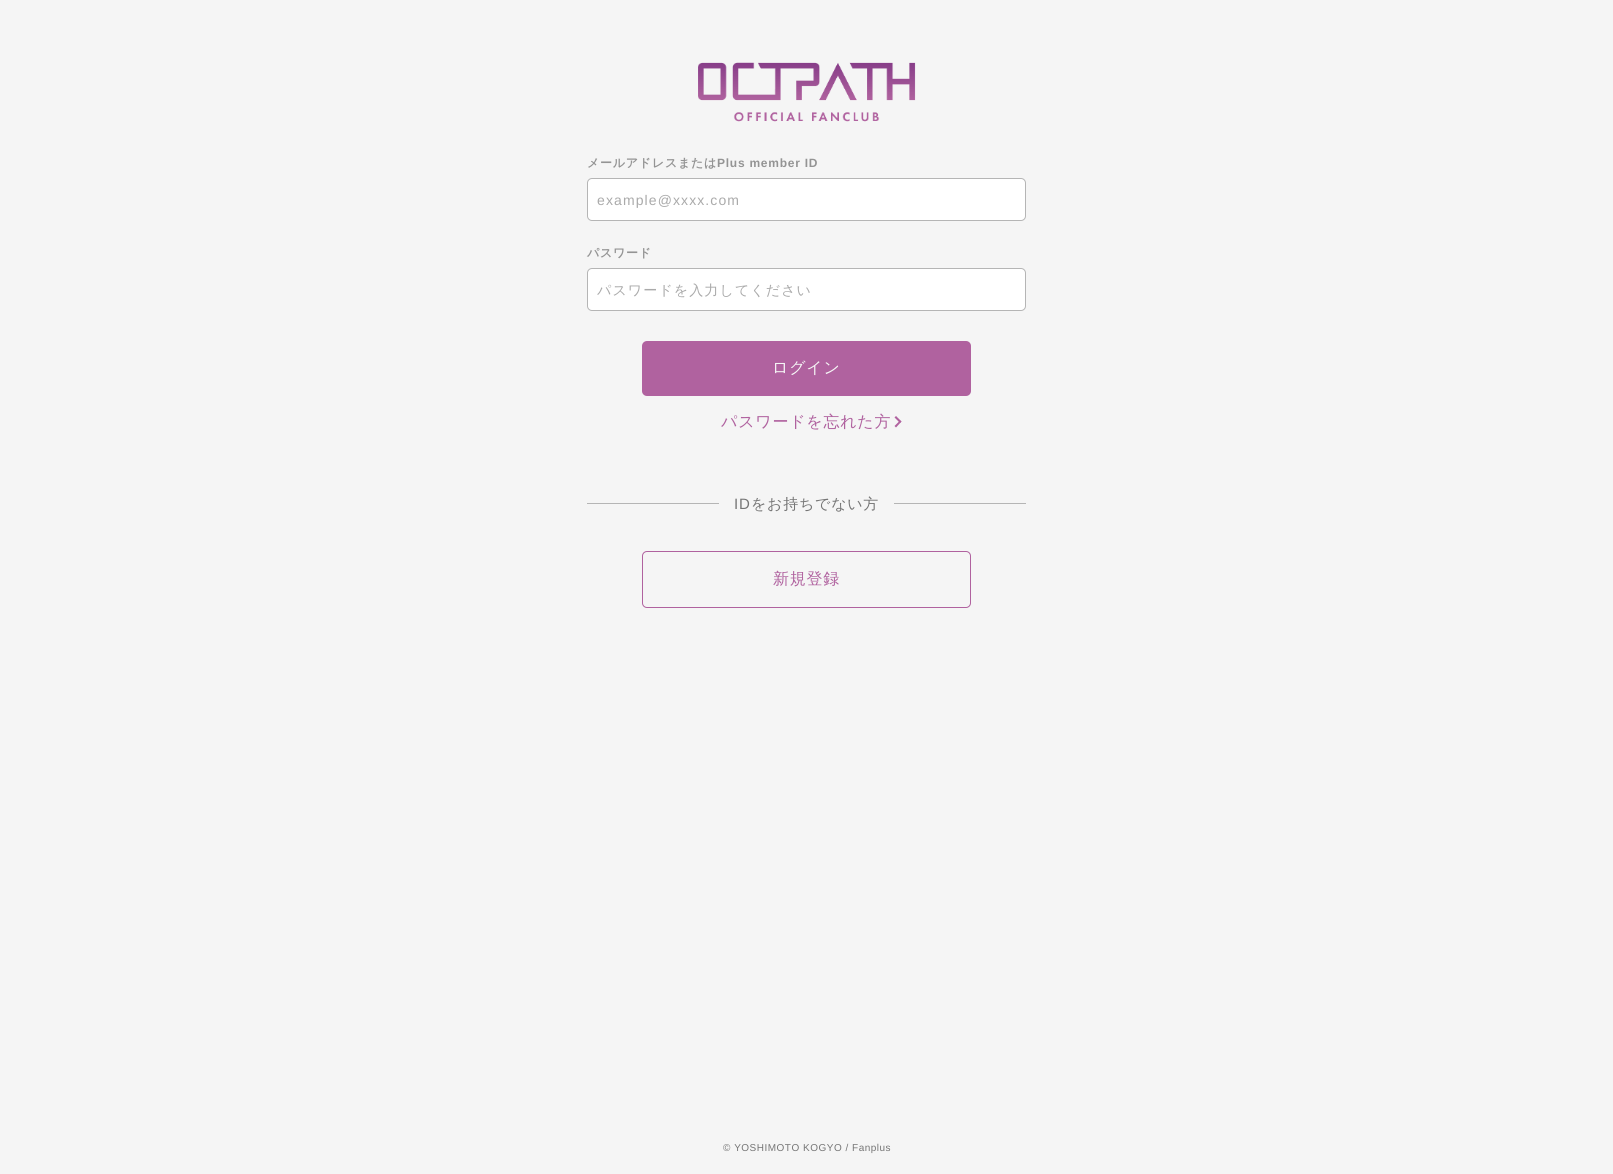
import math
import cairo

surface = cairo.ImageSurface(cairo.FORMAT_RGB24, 1613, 1174)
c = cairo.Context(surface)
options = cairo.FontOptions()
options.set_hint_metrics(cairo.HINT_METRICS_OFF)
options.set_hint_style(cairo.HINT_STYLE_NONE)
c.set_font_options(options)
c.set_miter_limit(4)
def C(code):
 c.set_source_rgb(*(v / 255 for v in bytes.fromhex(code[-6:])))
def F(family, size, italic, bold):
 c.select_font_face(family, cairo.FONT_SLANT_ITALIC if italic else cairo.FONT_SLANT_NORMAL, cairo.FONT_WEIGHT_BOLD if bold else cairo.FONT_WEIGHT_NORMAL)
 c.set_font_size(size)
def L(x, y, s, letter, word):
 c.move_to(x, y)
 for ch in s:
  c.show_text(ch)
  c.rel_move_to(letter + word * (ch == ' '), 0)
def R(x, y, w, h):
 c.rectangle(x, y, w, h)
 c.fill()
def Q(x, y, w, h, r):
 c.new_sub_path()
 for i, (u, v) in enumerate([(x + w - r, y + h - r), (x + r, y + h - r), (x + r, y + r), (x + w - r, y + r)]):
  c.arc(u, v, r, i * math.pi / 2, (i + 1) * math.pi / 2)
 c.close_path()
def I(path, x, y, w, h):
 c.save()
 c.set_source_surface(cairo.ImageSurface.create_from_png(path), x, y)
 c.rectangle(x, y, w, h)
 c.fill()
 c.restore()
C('f5f5f5')
c.paint()
I('1.png',698,62,218,60)
F('WenQuanYi Zen Hei',12,0,1)
C('949494')
L(587,167,'メールアドレスまたは',.75,0)
F('Liberation Sans',12,0,1)
L(717,167,'Plus member ID',.75,0)
C('ffffff')
Q(587.5,178.5,438,42,4.5)
c.fill_preserve()
C('b5b5b5')
c.set_line_width(1)
c.stroke()
F('Liberation Sans',14,0,0)
C('aaaaaa')
L(597,205,'example@xxxx.com',1.1,0)
F('WenQuanYi Zen Hei',12,0,1)
C('949494')
L(587,257,'パスワード',.75,0)
C('ffffff')
Q(587.5,268.5,438,42,4.5)
c.fill_preserve()
C('b5b5b5')
c.stroke()
F('WenQuanYi Zen Hei Medium',14,0,0)
C('aaaaaa')
L(597,295,'パスワードを入力してください',1.1,0)
C('b0629f')
Q(642,341,329,55,5)
c.fill()
F('WenQuanYi Zen Hei Medium',16,0,0)
C('f5f5f5')
L(772,373,'ログイン',.75,0)
C('b0629f')
L(721,427,'パスワードを忘れた方',.75,0)
c.new_path()
c.move_to(900,423)
c.line_to(894.5,417.5)
c.line_to(896,416)
c.line_to(901.5,421.5)
c.close_path()
c.fill()
c.new_path()
c.move_to(896,427.5)
c.line_to(894.5,426)
c.line_to(900,420.5)
c.line_to(901.5,421.5)
c.close_path()
c.fill()
C('b5b5b5')
R(587,503,132,1)
F('Liberation Sans',15,0,0)
C('757575')
L(734,509,'ID',.75,0)
F('WenQuanYi Zen Hei Medium',15,0,0)
L(751,509,'をお持ちでない方',.75,0)
C('b5b5b5')
R(894,503,132,1)
Q(642.5,551.5,328,56,4.5)
C('b0629f')
c.stroke()
F('WenQuanYi Zen Hei Medium',16,0,0)
L(773,584,'新規登録',.75,0)
F('Liberation Sans',10,0,0)
C('757575')
L(723,1151,'© YOSHIMOTO KOGYO / Fanplus',.5,0)
surface.write_to_png('o.png')
